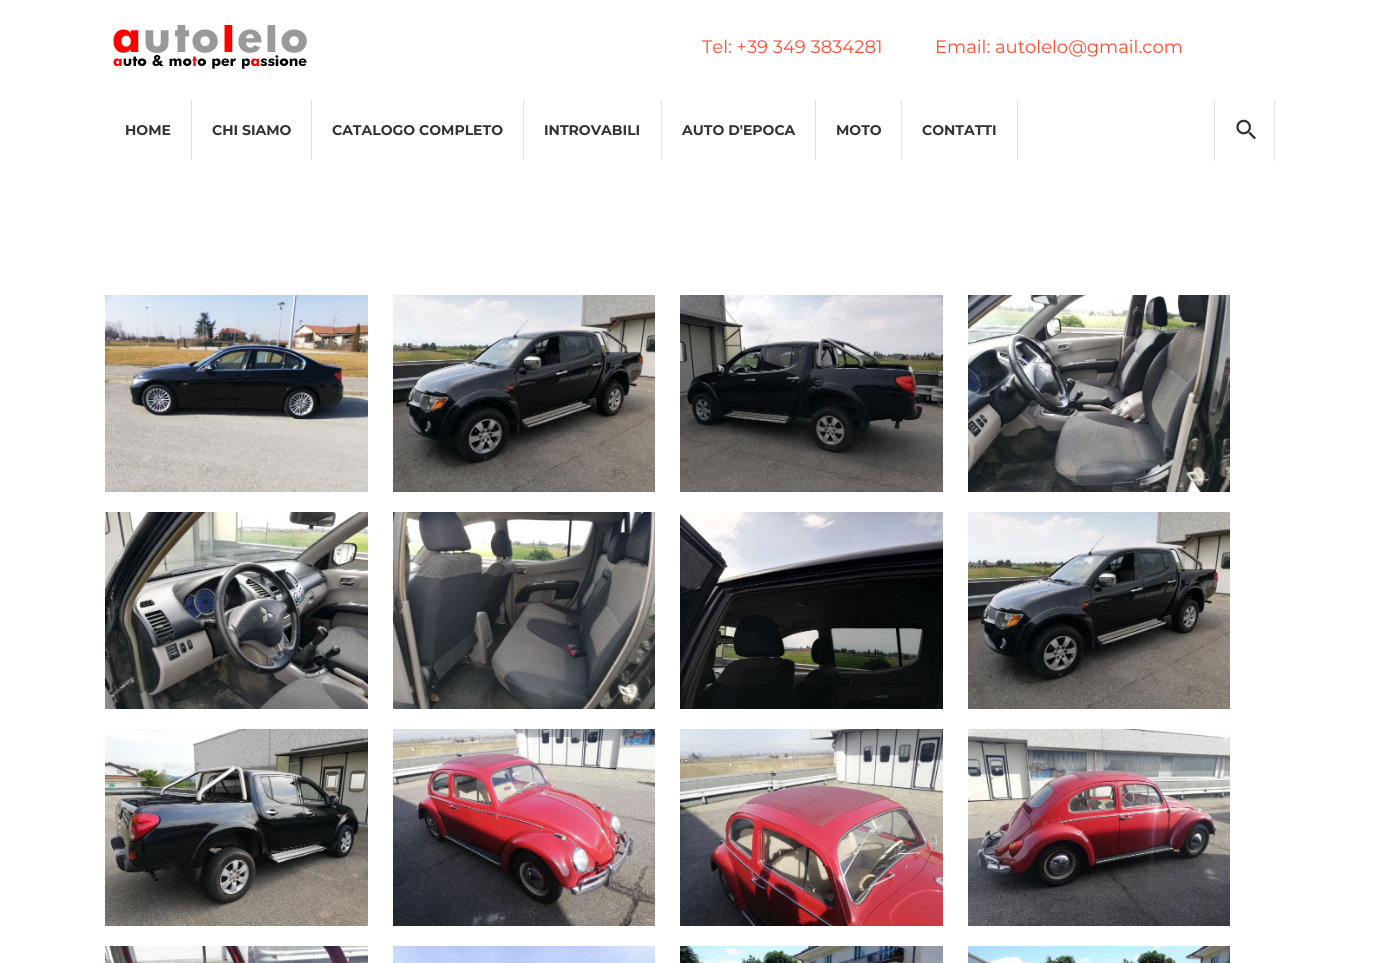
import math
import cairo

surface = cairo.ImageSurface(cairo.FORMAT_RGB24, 1380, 963)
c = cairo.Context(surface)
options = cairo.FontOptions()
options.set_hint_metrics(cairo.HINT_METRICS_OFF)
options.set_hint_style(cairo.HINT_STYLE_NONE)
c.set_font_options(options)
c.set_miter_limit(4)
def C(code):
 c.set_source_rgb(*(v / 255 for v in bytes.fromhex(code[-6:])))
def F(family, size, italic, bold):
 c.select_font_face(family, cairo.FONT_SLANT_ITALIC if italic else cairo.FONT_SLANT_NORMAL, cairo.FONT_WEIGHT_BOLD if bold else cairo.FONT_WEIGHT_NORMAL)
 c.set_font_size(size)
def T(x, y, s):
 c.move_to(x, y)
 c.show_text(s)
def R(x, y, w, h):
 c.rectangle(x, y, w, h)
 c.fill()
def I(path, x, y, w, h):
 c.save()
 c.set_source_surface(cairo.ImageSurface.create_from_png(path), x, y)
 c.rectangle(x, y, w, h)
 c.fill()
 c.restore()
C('ffffff')
c.paint()
I('1.png',113,25,194,44)
F('Montserrat',18,0,0)
C('ff4b33')
T(702,53,'Tel: +39 349 3834281')
T(935,53,'Email: autolelo@gmail.com')
F('Montserrat',14,0,1)
C('333333')
T(125,135,'HOME')
C('e0e0e0')
R(191,100,1,60)
C('333333')
T(212,135,'CHI SIAMO')
C('e0e0e0')
R(311,100,1,60)
C('333333')
T(332,135,'CATALOGO COMPLETO')
C('e0e0e0')
R(523,100,1,60)
C('333333')
T(544,135,'INTROVABILI')
C('e0e0e0')
R(661,100,1,60)
C('333333')
T(682,135,'AUTO D\'EPOCA')
C('e0e0e0')
R(815,100,1,60)
C('333333')
T(836,135,'MOTO')
C('e0e0e0')
R(1017,100,1,60)
R(901,100,1,60)
C('333333')
T(922,135,'CONTATTI')
C('e0e0e0')
R(1274,100,1,61)
R(1214,100,1,61)
I('2.png',1236,119,20,21)
I('3.png',105,295,263,197)
I('4.png',393,295,262,197)
I('5.png',680,295,263,197)
I('6.png',968,295,262,197)
I('7.png',105,512,263,197)
I('8.png',393,512,262,197)
I('9.png',680,512,263,197)
I('4.png',968,512,262,197)
I('10.png',105,729,263,197)
I('11.png',393,729,262,197)
I('12.png',680,729,263,197)
I('13.png',968,729,262,197)
I('14.png',105,946,263,17)
I('15.png',393,946,262,17)
I('16.png',680,946,263,17)
I('17.png',968,946,262,17)
surface.write_to_png('o.png')
